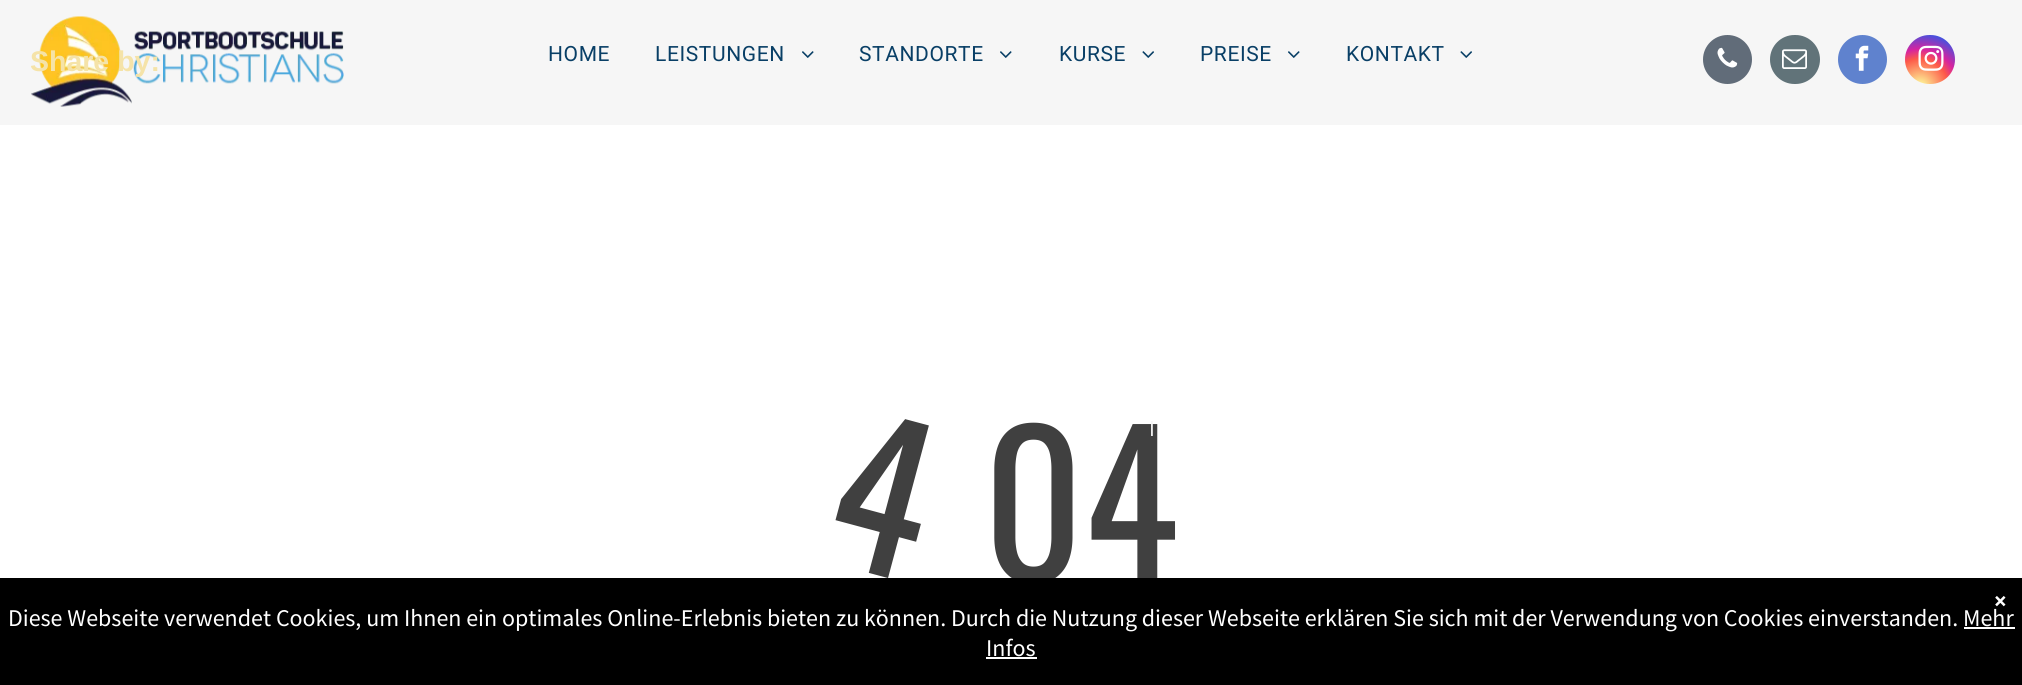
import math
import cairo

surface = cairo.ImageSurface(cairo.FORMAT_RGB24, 2022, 685)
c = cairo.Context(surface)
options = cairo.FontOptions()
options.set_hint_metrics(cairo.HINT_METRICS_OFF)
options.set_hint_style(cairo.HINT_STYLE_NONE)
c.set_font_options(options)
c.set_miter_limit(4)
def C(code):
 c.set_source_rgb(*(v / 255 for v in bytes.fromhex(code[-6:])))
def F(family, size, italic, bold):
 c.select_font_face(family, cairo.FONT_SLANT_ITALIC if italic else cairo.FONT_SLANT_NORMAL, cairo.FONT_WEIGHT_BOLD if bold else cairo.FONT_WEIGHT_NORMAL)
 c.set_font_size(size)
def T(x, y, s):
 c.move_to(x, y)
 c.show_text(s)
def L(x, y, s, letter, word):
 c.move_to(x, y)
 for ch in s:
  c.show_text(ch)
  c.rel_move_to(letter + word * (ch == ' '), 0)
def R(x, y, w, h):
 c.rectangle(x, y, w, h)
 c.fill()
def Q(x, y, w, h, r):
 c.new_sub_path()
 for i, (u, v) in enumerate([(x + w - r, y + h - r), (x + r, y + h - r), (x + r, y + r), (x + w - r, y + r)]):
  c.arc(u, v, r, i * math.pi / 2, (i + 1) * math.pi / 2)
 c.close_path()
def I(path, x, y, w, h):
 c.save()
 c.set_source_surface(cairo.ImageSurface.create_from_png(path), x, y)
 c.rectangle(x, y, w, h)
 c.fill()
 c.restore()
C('ffffff')
c.paint()
C('f6f6f6')
R(0,0,2022,125)
I('1.png',31,16,313,91)
F('Roboto',21,0,0)
C('093f66')
L(548,61,'HOME',.6,0)
L(655,61,'LEISTUNGEN',.6,0)
I('2.png',802,51,12,7)
L(859,61,'STANDORTE',.6,0)
I('2.png',1000,51,12,7)
L(1059,61,'KURSE',.6,0)
I('3.png',1142,51,12,7)
L(1346,61,'KONTAKT',.6,0)
I('3.png',1460,51,12,7)
F('Oswald',195,0,0)
C('404040')
T(983,582,'04')
F('Open Sans',21,0,0)
C('f6f6f6')
L(1149,436,'I',.6,0)
F('Roboto',21,0,0)
C('093f66')
L(1200,61,'PREISE',.6,0)
I('2.png',1288,51,12,7)
C('616c79')
c.arc(1727.5,59.5,24.5,0,2 * math.pi)
c.fill()
I('4.png',1717,47,21,21)
C('617379')
Q(1770,35,50,49,24.5)
c.fill()
I('5.png',1782,49,25,20)
C('5f82ce')
c.arc(1862.5,59.5,24.5,0,2 * math.pi)
c.fill()
I('6.png',1855,45,14,26)
gradient = cairo.RadialGradient(1920,87,0,1920,87,63)
gradient.add_color_stop_rgba(0,0.992,0.957,0.592,1)
gradient.add_color_stop_rgba(.05,0.992,0.957,0.592,1)
gradient.add_color_stop_rgba(.45,0.992,0.349,0.286,1)
gradient.add_color_stop_rgba(.6,0.839,0.141,0.624,1)
gradient.add_color_stop_rgba(.9,0.157,0.353,0.922,1)
c.set_source(gradient)
Q(1905,35,50,49,24.5)
c.fill()
I('7.png',1918,45,26,26)
F('Oswald',195,0,0)
C('404040')
c.save()
c.translate(817,559)
c.rotate(15 * math.pi / 180)
T(0,0,'4')
c.restore()
C('000000')
R(0,578,2022,107)
F('Source Sans Pro',24,0,1)
C('ffffff')
T(1994,609,'×')
F('Source Sans Pro',24,0,0)
T(8,626,'Diese Webseite verwendet Cookies, um Ihnen ein optimales Online-Erlebnis bieten zu können. Durch die Nutzung dieser Webseite erklären Sie sich mit der Verwendung von Cookies einverstanden. Mehr')
T(986,656,'Infos')
R(1964,627,51,2)
R(986,657,51,2)
F('Liberation Sans',28.5,0,1)
C('f5e3a8')
T(30,71,'Share by:')
surface.write_to_png('o.png')
